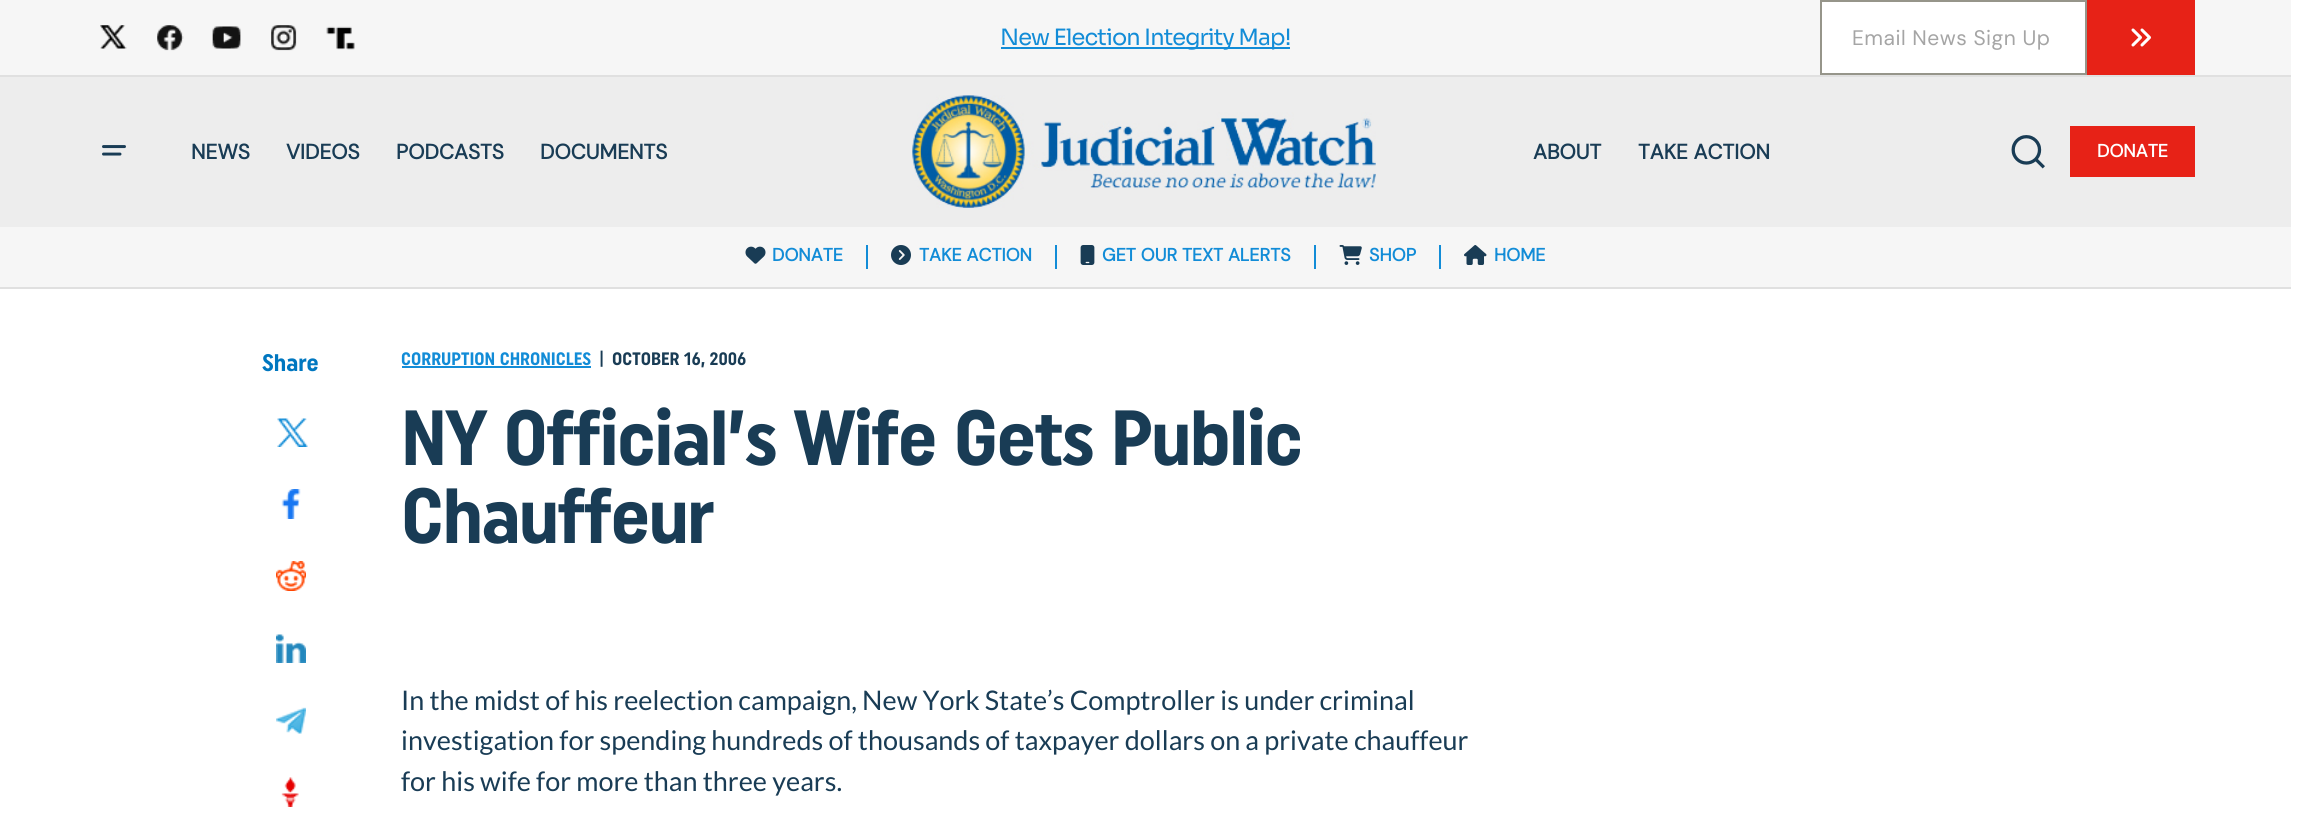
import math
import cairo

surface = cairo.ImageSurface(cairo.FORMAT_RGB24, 2313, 828)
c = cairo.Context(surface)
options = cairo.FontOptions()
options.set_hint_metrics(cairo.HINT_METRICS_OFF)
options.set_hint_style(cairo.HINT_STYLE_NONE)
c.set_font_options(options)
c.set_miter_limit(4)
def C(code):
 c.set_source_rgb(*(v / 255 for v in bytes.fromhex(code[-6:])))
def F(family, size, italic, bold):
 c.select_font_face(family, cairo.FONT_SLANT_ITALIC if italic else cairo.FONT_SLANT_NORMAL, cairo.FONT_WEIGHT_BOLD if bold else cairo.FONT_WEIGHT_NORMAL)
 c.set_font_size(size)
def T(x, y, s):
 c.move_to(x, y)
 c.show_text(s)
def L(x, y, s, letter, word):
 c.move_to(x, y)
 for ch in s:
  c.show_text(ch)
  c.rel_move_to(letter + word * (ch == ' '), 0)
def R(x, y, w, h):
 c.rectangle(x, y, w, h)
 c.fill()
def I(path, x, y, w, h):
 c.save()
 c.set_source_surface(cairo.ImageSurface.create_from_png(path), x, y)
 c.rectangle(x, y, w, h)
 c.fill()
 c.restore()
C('ffffff')
c.paint()
C('f6f6f6')
R(0,0,2291,75)
I('1.png',100,25,27,24)
I('2.png',157,25,27,26)
I('3.png',212,26,29,23)
I('4.png',271,25,26,26)
I('5.png',326,26,29,24)
C('128cd7')
R(1001,47,289,2)
F('Sora',22.5,0,0)
L(1000,45,'New Election Integrity Map!',-.9,0)
C('ffffff')
c.rectangle(1821,1,265,73)
c.fill_preserve()
C('96958a')
c.stroke()
F('DM Sans',21,0,0)
C('a5a5a5')
L(1852,45,'Email News Sign Up',.5,0)
C('e72217')
R(2087,0,108,75)
I('6.png',2131,28,20,19)
C('e0e0e0')
R(0,75,2291,2)
R(0,287,2291,2)
C('ededed')
R(0,77,2291,150)
I('7.png',102,145,24,11)
F('DM Sans',21,0,1)
C('193c55')
T(191,159,'NEWS')
T(286,159,'VIDEOS')
T(396,159,'PODCASTS')
T(540,159,'DOCUMENTS')
I('8.png',912,95,464,113)
T(1533,159,'ABOUT')
T(1638,159,'TAKE ACTION')
I('9.png',2011,135,34,34)
C('e72217')
R(2070,126,125,51)
F('DM Sans',18,0,1)
C('ffffff')
T(2097,157,'DONATE')
C('f6f6f6')
R(0,227,2291,60)
I('10.png',745,246,21,18)
C('128cd7')
T(772,261,'DONATE')
R(866,245,2,24)
I('11.png',891,245,20,20)
T(919,261,'TAKE ACTION')
R(1055,245,2,24)
I('12.png',1080,245,15,20)
T(1102,261,'GET OUR TEXT ALERTS')
R(1314,245,2,24)
I('13.png',1339,245,23,20)
T(1369,261,'SHOP')
R(1439,245,2,24)
I('14.png',1464,245,23,20)
T(1494,261,'HOME')
F('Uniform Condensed',24,0,1)
C('0077c0')
T(262,371,'Share')
I('15.png',277,418,31,29)
I('16.png',281,489,20,30)
I('17.png',276,561,30,30)
I('18.png',276,634,30,29)
I('19.png',276,707,30,27)
I('20.png',281,777,18,30)
F('Uniform Condensed',18,0,1)
C('128cd7')
T(401,365,'CORRUPTION CHRONICLES')
R(402,366,189,2)
C('193c55')
T(599,365,'|')
T(612,365,'OCTOBER 16, 2006')
F('Uniform Condensed',78,0,1)
L(401,465,'NY Official’s Wife Gets Public',-1.5,0)
L(401,543,'Chauffeur',-1.5,0)
F('Lato',27,0,0)
T(401,710,'In the midst of his reelection campaign, New York State’s Comptroller is under criminal')
T(401,750,'investigation for spending hundreds of thousands of taxpayer dollars on a private chauffeur')
T(401,791,'for his wife for more than three years.')
surface.write_to_png('o.png')
